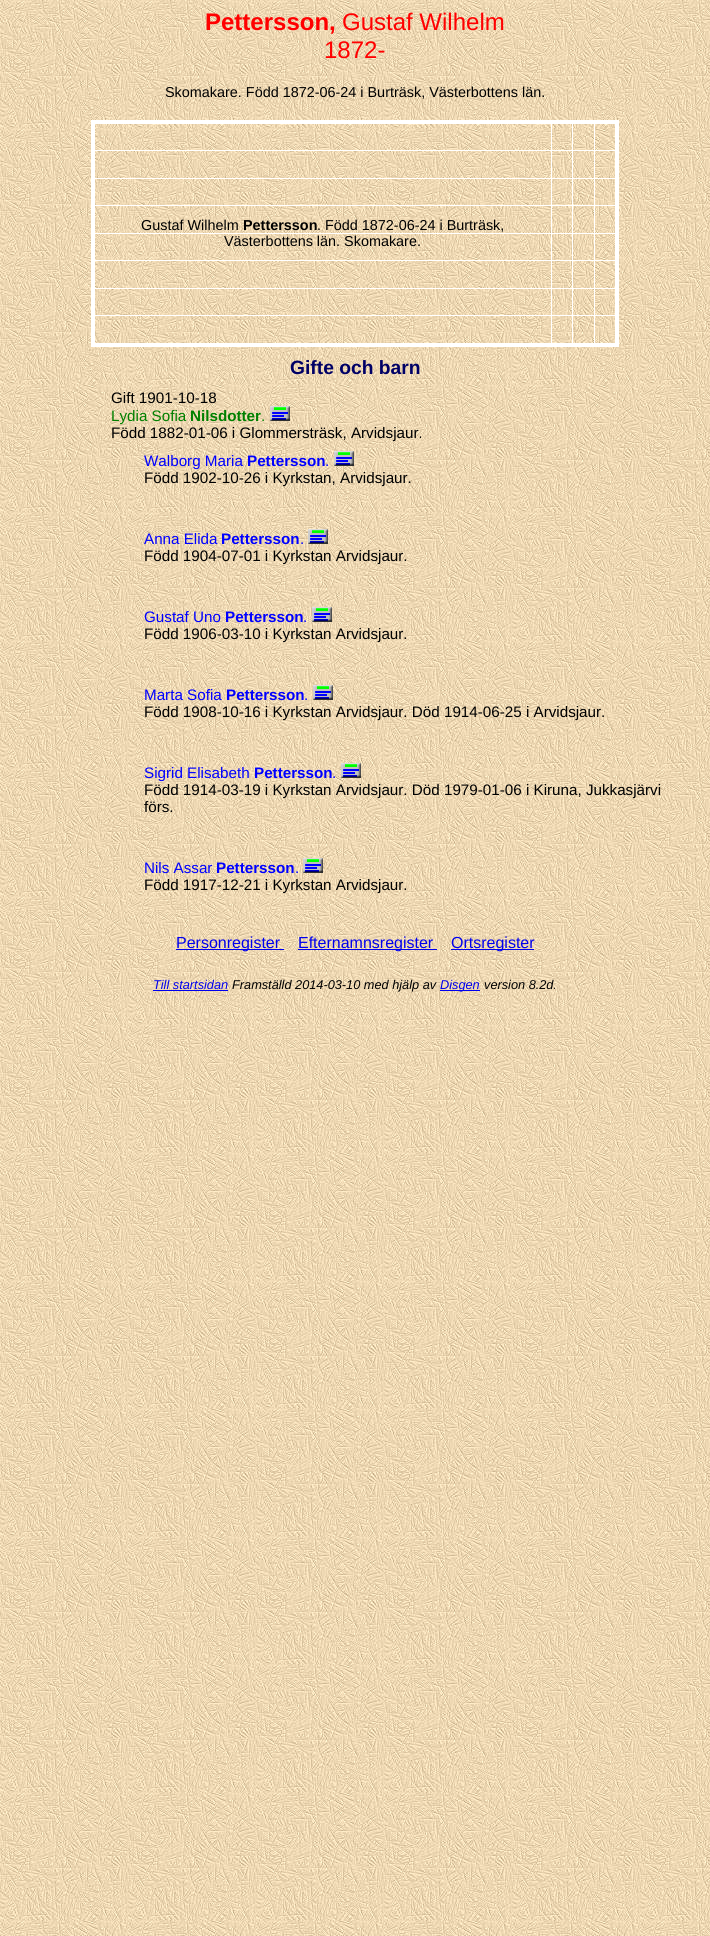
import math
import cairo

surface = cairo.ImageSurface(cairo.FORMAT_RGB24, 710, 1936)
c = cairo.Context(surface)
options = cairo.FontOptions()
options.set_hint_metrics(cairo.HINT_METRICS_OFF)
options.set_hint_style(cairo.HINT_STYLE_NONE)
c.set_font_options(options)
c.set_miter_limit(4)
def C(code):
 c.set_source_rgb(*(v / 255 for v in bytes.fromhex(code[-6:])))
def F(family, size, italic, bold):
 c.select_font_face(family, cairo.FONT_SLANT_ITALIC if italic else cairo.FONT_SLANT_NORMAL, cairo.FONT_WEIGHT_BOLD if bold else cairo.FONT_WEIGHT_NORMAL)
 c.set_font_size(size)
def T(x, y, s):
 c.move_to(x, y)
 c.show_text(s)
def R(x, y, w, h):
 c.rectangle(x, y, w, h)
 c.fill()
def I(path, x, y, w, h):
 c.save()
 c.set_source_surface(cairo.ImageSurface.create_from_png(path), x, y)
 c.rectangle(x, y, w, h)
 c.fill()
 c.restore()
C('ffffff')
c.paint()
I('1.png',0,0,710,1936)
F('Liberation Sans',24,0,1)
C('ff0000')
T(205,30,'Pettersson,')
F('Liberation Sans',24,0,0)
T(342,30,'Gustaf Wilhelm')
T(324,58,'1872-')
F('Liberation Sans',14.4,0,0)
C('000000')
T(165,97,'Skomakare. Född 1872-06-24 i Burträsk, Västerbottens län.')
C('ffffff')
R(93,315,525,1)
R(93,288,525,1)
R(93,233,525,1)
R(93,150,525,1)
R(93,178,525,1)
R(93,205,525,1)
R(93,260,525,1)
R(594,122,1,223)
R(572,122,1,223)
R(551,122,1,223)
R(91,120,528,4)
R(615,120,4,227)
R(91,343,528,4)
R(91,120,4,227)
C('000000')
T(141,230,'Gustaf Wilhelm')
F('Liberation Sans',14.4,0,1)
T(243,230,'Pettersson')
F('Liberation Sans',14.4,0,0)
T(317,230,'. Född 1872-06-24 i Burträsk,')
T(224,246,'Västerbottens län. Skomakare.')
F('Liberation Sans',19.25,0,1)
C('000066')
T(290,374,'Gifte och barn')
F('Liberation Sans',15.2,0,0)
C('000000')
T(111,403,'Gift 1901-10-18')
C('008000')
T(111,421,'Lydia Sofia')
F('Liberation Sans',15.2,0,1)
T(190,421,'Nilsdotter')
F('Liberation Sans',15.2,0,0)
T(261,421,'.')
I('2.png',270,406,20,15)
C('000000')
T(111,438,'Född 1882-01-06 i Glommersträsk, Arvidsjaur.')
C('0000ff')
T(144,466,'Walborg Maria')
F('Liberation Sans',15.2,0,1)
T(247,466,'Pettersson')
F('Liberation Sans',15.2,0,0)
T(325,466,'.')
I('2.png',334,451,20,15)
C('000000')
T(144,483,'Född 1902-10-26 i Kyrkstan, Arvidsjaur.')
C('0000ff')
T(144,544,'Anna Elida')
F('Liberation Sans',15.2,0,1)
T(221,544,'Pettersson')
F('Liberation Sans',15.2,0,0)
T(300,544,'.')
I('2.png',308,529,20,15)
C('000000')
T(144,561,'Född 1904-07-01 i Kyrkstan Arvidsjaur.')
C('0000ff')
T(144,622,'Gustaf Uno')
F('Liberation Sans',15.2,0,1)
T(225,622,'Pettersson')
F('Liberation Sans',15.2,0,0)
T(303,622,'.')
I('2.png',312,607,20,15)
C('000000')
T(144,639,'Född 1906-03-10 i Kyrkstan Arvidsjaur.')
C('0000ff')
T(144,700,'Marta Sofia')
F('Liberation Sans',15.2,0,1)
T(226,700,'Pettersson')
F('Liberation Sans',15.2,0,0)
T(304,700,'.')
I('2.png',313,685,20,15)
C('000000')
T(144,717,'Född 1908-10-16 i Kyrkstan Arvidsjaur. Död 1914-06-25 i Arvidsjaur.')
C('0000ff')
T(144,778,'Sigrid Elisabeth')
F('Liberation Sans',15.2,0,1)
T(254,778,'Pettersson')
F('Liberation Sans',15.2,0,0)
T(332,778,'.')
I('2.png',341,763,20,15)
C('000000')
T(144,795,'Född 1914-03-19 i Kyrkstan Arvidsjaur. Död 1979-01-06 i Kiruna, Jukkasjärvi')
T(144,812,'förs.')
C('0000ff')
T(144,873,'Nils Assar')
F('Liberation Sans',15.2,0,1)
T(216,873,'Pettersson')
F('Liberation Sans',15.2,0,0)
T(295,873,'.')
I('2.png',303,858,20,15)
C('000000')
T(144,890,'Född 1917-12-21 i Kyrkstan Arvidsjaur.')
C('0000ee')
R(176,949,108,1)
F('Liberation Sans',16,0,0)
T(176,948,'Personregister')
R(298,949,139,1)
T(298,948,'Efternamnsregister')
R(451,949,83,1)
T(451,948,'Ortsregister')
F('Liberation Sans',12.75,1,0)
T(153,989,'Till startsidan')
R(153,990,75,1)
C('000000')
T(232,989,'Framställd 2014-03-10 med hjälp av')
C('0000ee')
R(440,990,40,1)
T(440,989,'Disgen')
C('000000')
T(484,989,'version 8.2d.')
surface.write_to_png('o.png')
